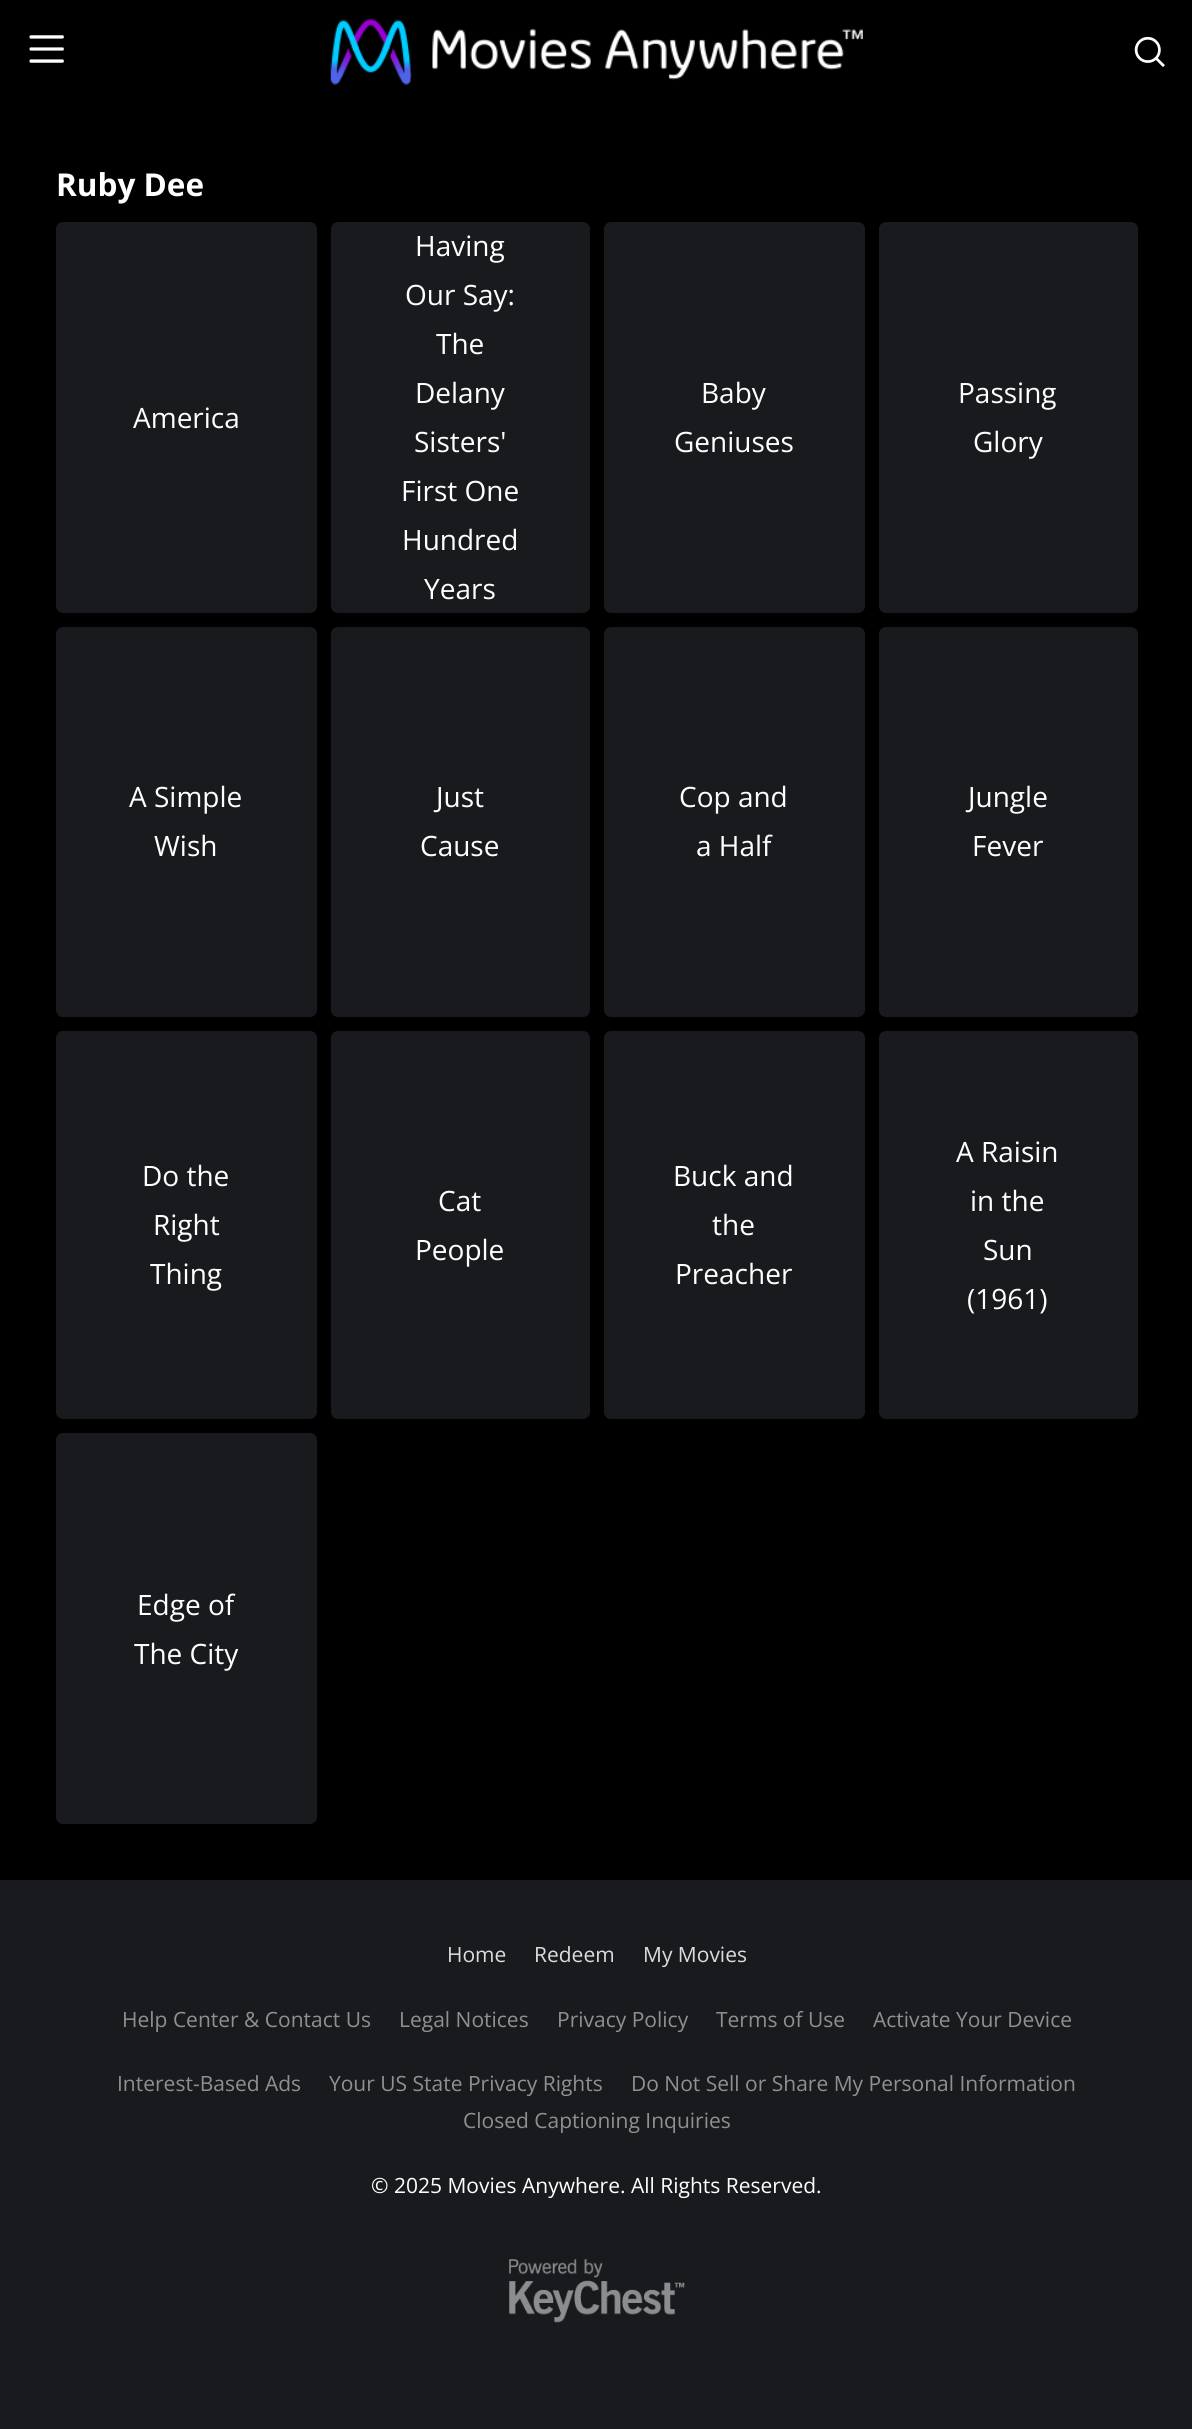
import math
import cairo

surface = cairo.ImageSurface(cairo.FORMAT_RGB24, 1192, 2429)
c = cairo.Context(surface)
options = cairo.FontOptions()
options.set_hint_metrics(cairo.HINT_METRICS_OFF)
options.set_hint_style(cairo.HINT_STYLE_NONE)
c.set_font_options(options)
c.set_miter_limit(4)
def C(code):
 c.set_source_rgb(*(v / 255 for v in bytes.fromhex(code[-6:])))
def F(family, size, italic, bold):
 c.select_font_face(family, cairo.FONT_SLANT_ITALIC if italic else cairo.FONT_SLANT_NORMAL, cairo.FONT_WEIGHT_BOLD if bold else cairo.FONT_WEIGHT_NORMAL)
 c.set_font_size(size)
def T(x, y, s):
 c.move_to(x, y)
 c.show_text(s)
def R(x, y, w, h):
 c.rectangle(x, y, w, h)
 c.fill()
def Q(x, y, w, h, r):
 c.new_sub_path()
 for i, (u, v) in enumerate([(x + w - r, y + h - r), (x + r, y + h - r), (x + r, y + r), (x + w - r, y + r)]):
  c.arc(u, v, r, i * math.pi / 2, (i + 1) * math.pi / 2)
 c.close_path()
def I(path, x, y, w, h):
 c.save()
 c.set_source_surface(cairo.ImageSurface.create_from_png(path), x, y)
 c.rectangle(x, y, w, h)
 c.fill()
 c.restore()
C('000000')
c.paint()
I('1.png',29,35,35,28)
I('2.png',330,18,533,68)
I('3.png',1134,36,31,31)
F('Open Sans',31.5,0,1)
C('ffffff')
T(56,196,'Ruby Dee')
C('181a1d')
Q(56,222,261,391,7)
c.fill()
F('Open Sans',28,0,0)
C('ffffff')
T(133,428,'America')
C('181a1d')
Q(331,222,259,391,7)
c.fill()
C('ffffff')
T(415,256,'Having')
T(405,305,'Our Say:')
T(436,354,'The')
T(415,403,'Delany')
T(414,452,'Sisters\'')
T(401,501,'First One')
T(402,550,'Hundred')
T(424,599,'Years')
C('181a1d')
Q(604,222,261,391,7)
c.fill()
C('ffffff')
T(701,403,'Baby')
T(674,452,'Geniuses')
C('181a1d')
Q(879,222,259,391,7)
c.fill()
C('ffffff')
T(958,403,'Passing')
T(973,452,'Glory')
C('181a1d')
Q(56,627,261,390,7)
c.fill()
C('ffffff')
T(129,807,'A Simple')
T(154,856,'Wish')
C('181a1d')
Q(331,627,259,390,7)
c.fill()
C('ffffff')
T(436,807,'Just')
T(420,856,'Cause')
C('181a1d')
Q(604,627,261,390,7)
c.fill()
C('ffffff')
T(679,807,'Cop and')
T(696,856,'a Half')
C('181a1d')
Q(879,627,259,390,7)
c.fill()
C('ffffff')
T(968,807,'Jungle')
T(972,856,'Fever')
C('181a1d')
Q(56,1031,261,388,7)
c.fill()
C('ffffff')
T(142,1186,'Do the')
T(153,1235,'Right')
T(150,1284,'Thing')
C('181a1d')
Q(331,1031,259,388,7)
c.fill()
C('ffffff')
T(438,1211,'Cat')
T(415,1260,'People')
C('181a1d')
Q(604,1031,261,388,7)
c.fill()
C('ffffff')
T(673,1186,'Buck and')
T(712,1235,'the')
T(675,1284,'Preacher')
C('181a1d')
Q(879,1031,259,388,7)
c.fill()
C('ffffff')
T(956,1162,'A Raisin')
T(970,1211,'in the')
T(983,1260,'Sun')
T(967,1309,'(1961)')
C('181a1d')
Q(56,1433,261,391,7)
c.fill()
C('ffffff')
T(137,1615,'Edge of')
T(134,1664,'The City')
C('181a1d')
R(0,1880,1192,549)
F('Open Sans',21,0,0)
C('dcdcdc')
T(447,1962,'Home')
T(534,1962,'Redeem')
T(643,1962,'My Movies')
C('909090')
T(122,2027,'Help Center & Contact Us')
T(399,2027,'Legal Notices')
T(557,2027,'Privacy Policy')
T(716,2027,'Terms of Use')
T(873,2027,'Activate Your Device')
T(117,2091,'Interest-Based Ads')
T(329,2091,'Your US State Privacy Rights')
T(631,2091,'Do Not Sell or Share My Personal Information')
T(463,2128,'Closed Captioning Inquiries')
C('ffffff')
T(371,2193,'© 2025 Movies Anywhere. All Rights Reserved.')
I('4.png',509,2259,176,64)
surface.write_to_png('o.png')
